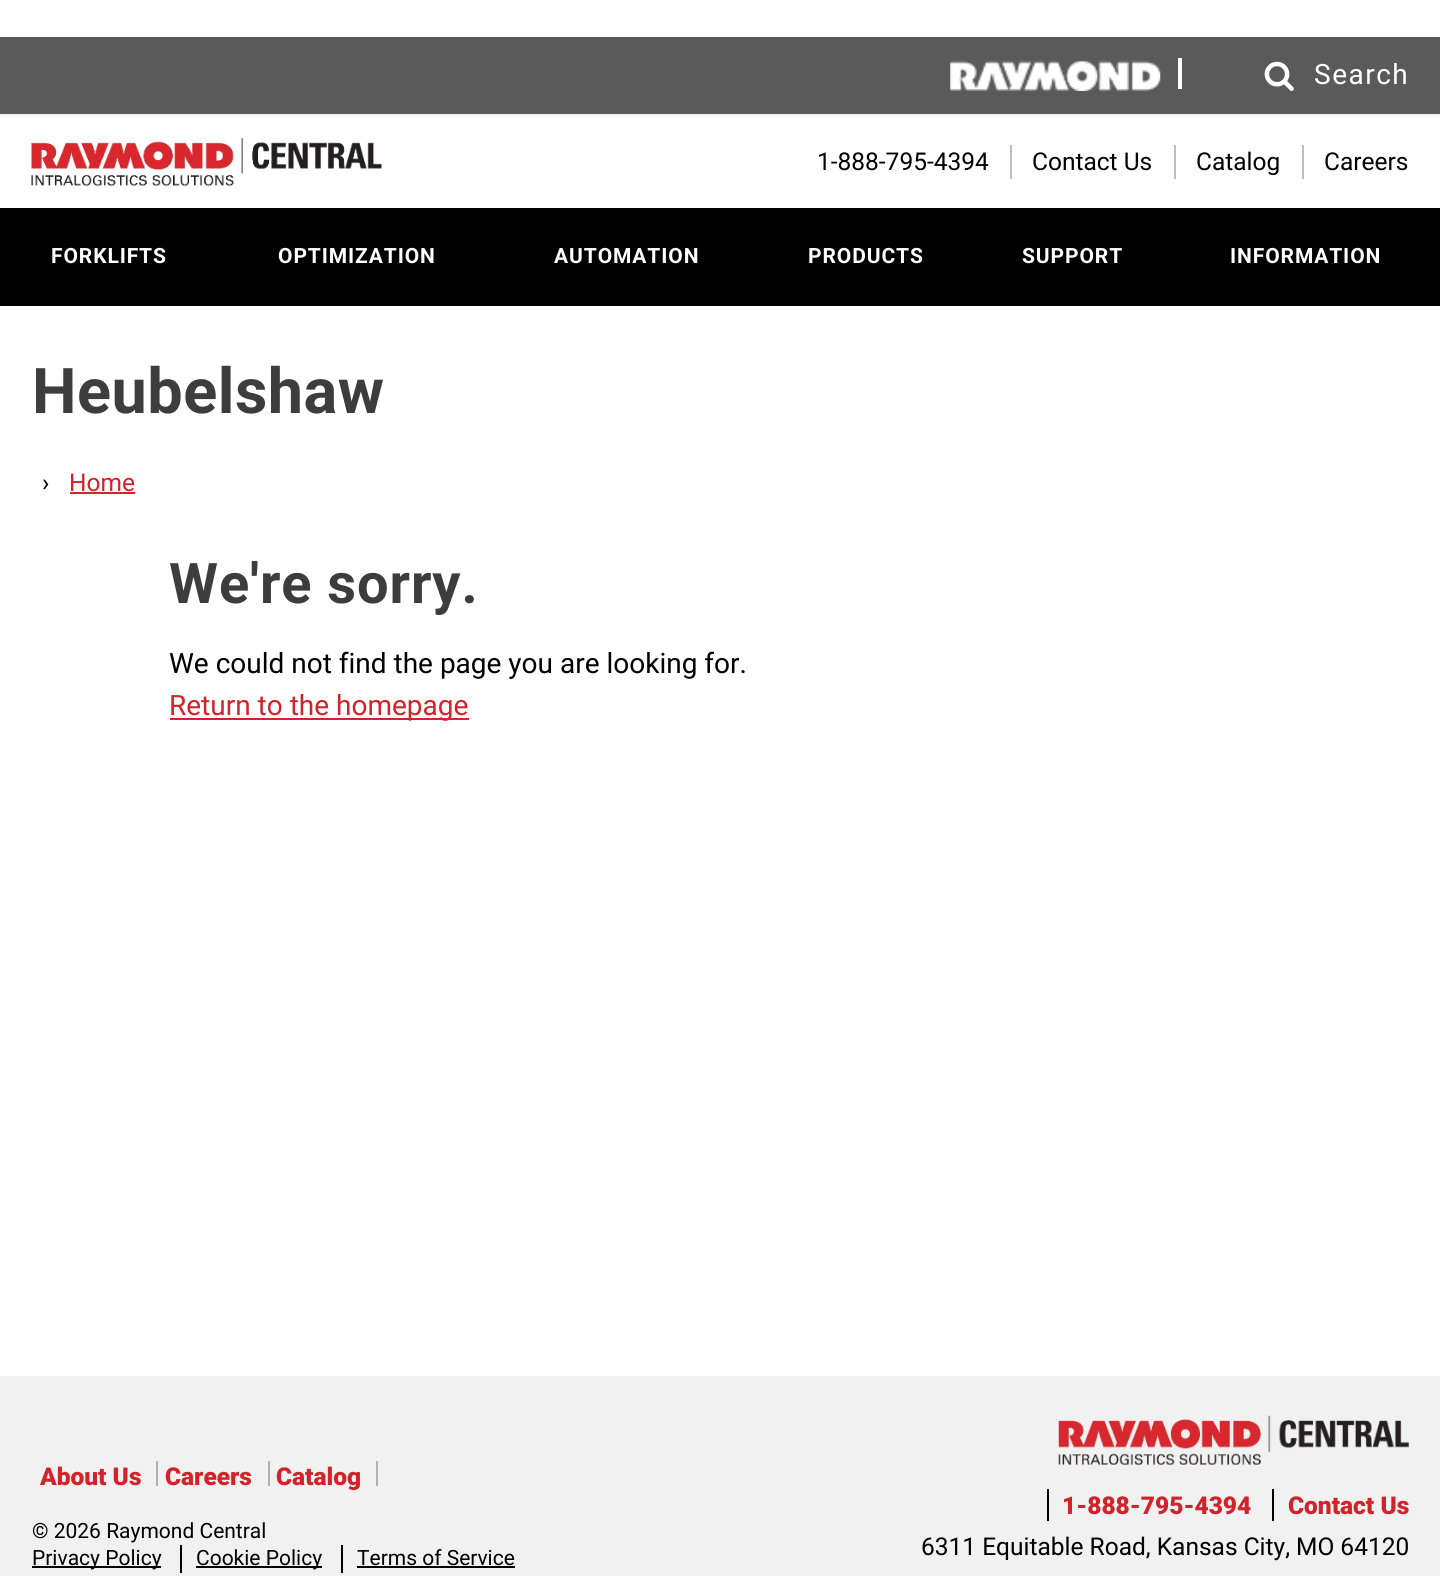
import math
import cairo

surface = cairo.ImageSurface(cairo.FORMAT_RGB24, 1440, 1576)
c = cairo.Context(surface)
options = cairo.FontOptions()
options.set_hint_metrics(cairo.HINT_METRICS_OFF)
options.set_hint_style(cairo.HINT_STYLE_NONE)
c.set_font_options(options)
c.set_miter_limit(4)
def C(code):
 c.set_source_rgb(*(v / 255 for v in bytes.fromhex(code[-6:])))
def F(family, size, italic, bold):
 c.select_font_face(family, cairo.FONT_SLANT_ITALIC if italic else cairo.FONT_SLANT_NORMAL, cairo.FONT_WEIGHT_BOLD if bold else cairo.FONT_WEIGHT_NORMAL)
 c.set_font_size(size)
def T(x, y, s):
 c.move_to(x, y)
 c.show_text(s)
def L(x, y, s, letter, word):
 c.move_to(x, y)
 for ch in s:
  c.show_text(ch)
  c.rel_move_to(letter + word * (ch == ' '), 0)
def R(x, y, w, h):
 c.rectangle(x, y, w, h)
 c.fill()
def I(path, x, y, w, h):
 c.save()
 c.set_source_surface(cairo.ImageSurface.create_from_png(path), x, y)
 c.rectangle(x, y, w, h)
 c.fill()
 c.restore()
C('ffffff')
c.paint()
C('5a5a5a')
R(0,37,1440,77)
C('f1f1f1')
R(0,114,1440,2)
I('1.png',950,60,211,31)
C('ffffff')
R(1178,58,4,31)
I('2.png',1264,61,30,30)
F('Roboto',28,0,0)
L(1314,84,'Search',1.5,0)
I('3.png',31,138,351,49)
F('Roboto',24.5,0,0)
C('000000')
T(817,170,'1-888-795-4394')
C('bebebe')
R(1010,145,2,34)
C('000000')
T(1032,170,'Contact Us')
C('bebebe')
R(1174,145,2,34)
C('000000')
T(1196,170,'Catalog')
C('bebebe')
R(1302,145,2,34)
C('000000')
T(1324,170,'Careers')
R(0,208,1440,98)
F('Roboto',21,0,1)
C('ffffff')
L(51,263,'FORKLIFTS',.9,0)
L(278,263,'OPTIMIZATION',.9,0)
L(554,263,'AUTOMATION',.9,0)
L(808,263,'PRODUCTS',.9,0)
L(1022,263,'SUPPORT',.9,0)
L(1230,263,'INFORMATION',.9,0)
F('Roboto',63,0,1)
C('3d3d3d')
L(32,413,'Heubelshaw',.5,0)
F('Roboto',24.5,0,0)
C('000000')
T(42,491,'›')
C('d12329')
T(69,491,'Home')
R(70,492,65,2)
F('Roboto',56,0,1)
C('3d3d3d')
L(169,603,'We\'re sorry.',.9,0)
F('Roboto',28,0,0)
C('000000')
T(169,673,'We could not find the page you are looking for.')
C('d12329')
R(170,718,299,2)
T(169,715,'Return to the homepage')
C('f1f1f1')
R(0,1376,1440,200)
F('Roboto Black',24.5,0,0)
C('d12329')
T(40,1485,'About Us')
C('b1b1b1')
R(156,1461,2,25)
C('d12329')
T(165,1485,'Careers')
C('b1b1b1')
R(268,1461,2,25)
C('d12329')
T(276,1485,'Catalog')
C('b1b1b1')
R(376,1461,2,25)
F('Roboto',21,0,0)
C('000000')
T(32,1538,'© 2026 Raymond Central')
R(32,1566,129,2)
T(32,1565,'Privacy Policy')
R(180,1545,2,28)
R(196,1566,126,2)
T(196,1565,'Cookie Policy')
R(341,1545,2,28)
T(357,1565,'Terms of Service')
R(357,1566,158,2)
I('4.png',1058,1415,351,50)
R(1047,1489,2,32)
F('Roboto Black',24.5,0,0)
C('d12329')
T(1062,1514,'1-888-795-4394')
C('000000')
R(1272,1489,2,32)
C('d12329')
T(1288,1514,'Contact Us')
F('Roboto',24.5,0,0)
C('000000')
T(921,1555,'6311 Equitable Road, Kansas City, MO 64120')
surface.write_to_png('o.png')
